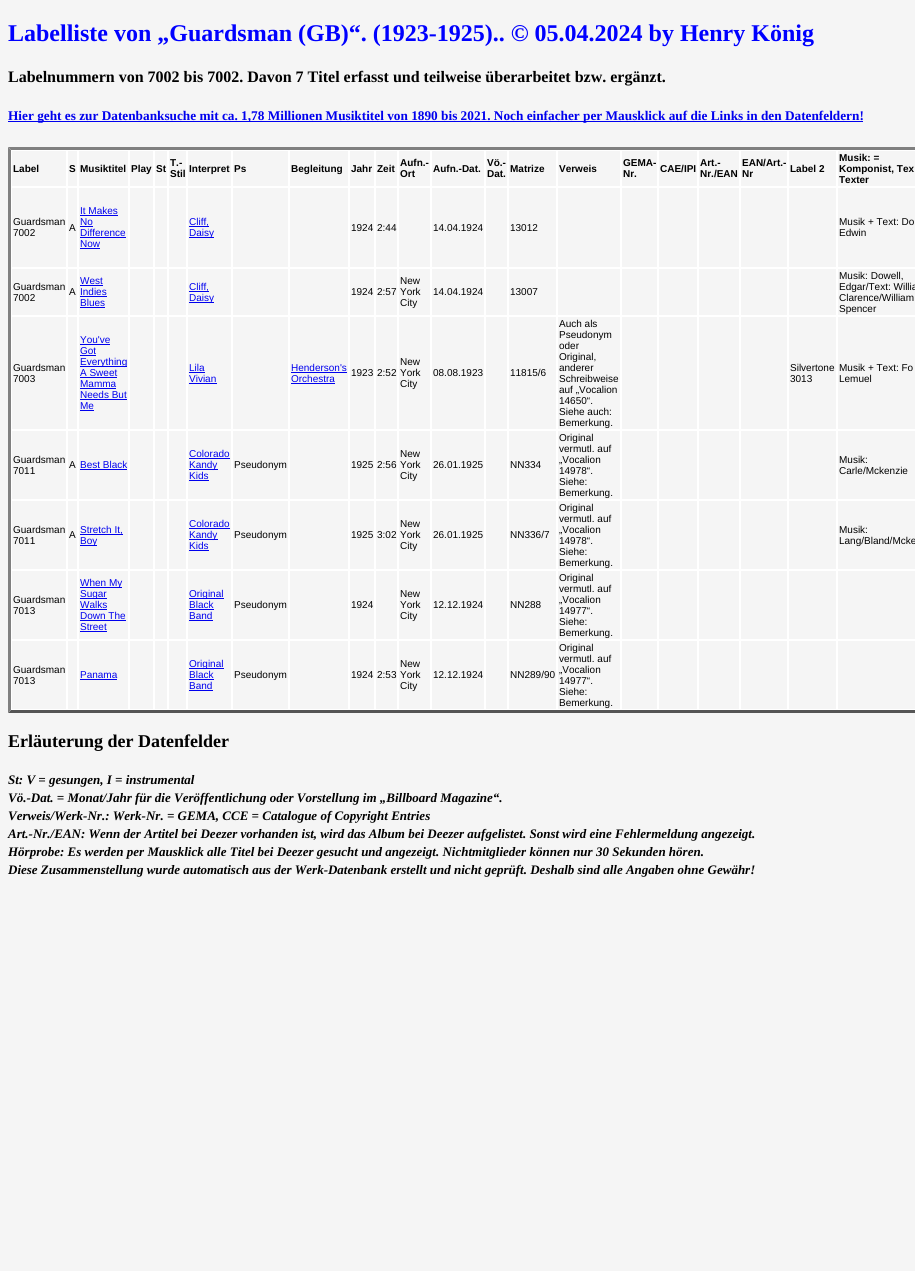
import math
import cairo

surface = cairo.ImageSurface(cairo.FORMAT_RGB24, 915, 1271)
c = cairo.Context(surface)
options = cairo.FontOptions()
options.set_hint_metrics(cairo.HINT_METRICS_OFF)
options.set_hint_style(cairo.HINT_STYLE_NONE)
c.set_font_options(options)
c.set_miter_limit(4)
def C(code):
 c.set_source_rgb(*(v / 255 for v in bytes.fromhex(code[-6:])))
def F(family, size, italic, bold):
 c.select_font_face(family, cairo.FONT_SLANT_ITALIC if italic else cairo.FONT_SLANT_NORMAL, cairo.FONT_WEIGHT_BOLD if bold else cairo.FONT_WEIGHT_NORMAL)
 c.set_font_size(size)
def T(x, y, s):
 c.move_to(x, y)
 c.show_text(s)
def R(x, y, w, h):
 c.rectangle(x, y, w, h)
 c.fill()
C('f5f5f5')
c.paint()
F('Liberation Serif',24,0,1)
C('0000ff')
T(8,41,'Labelliste von „Guardsman (GB)“. (1923-1925).. © 05.04.2024 by Henry König')
F('Liberation Serif',16,0,1)
C('000000')
T(8,82,'Labelnummern von 7002 bis 7002. Davon 7 Titel erfasst und teilweise überarbeitet bzw. ergänzt.')
C('0000ee')
R(8,121,855,1)
F('Liberation Serif',13.28,0,1)
T(8,120,'Hier geht es zur Datenbanksuche mit ca. 1,78 Millionen Musiktitel von 1890 bis 2021. Noch einfacher per Mausklick auf die Links in den Datenfeldern!')
C('808080')
c.new_path()
c.move_to(8,147)
c.line_to(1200,147)
c.line_to(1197,150)
c.line_to(11,150)
c.close_path()
c.fill()
C('555555')
c.new_path()
c.move_to(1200,713)
c.line_to(8,713)
c.line_to(11,710)
c.line_to(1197,710)
c.close_path()
c.fill()
C('808080')
c.new_path()
c.move_to(8,713)
c.line_to(8,147)
c.line_to(11,150)
c.line_to(11,710)
c.close_path()
c.fill()
c.rectangle(11.5,150.5,55,36)
C('ffffff')
c.set_line_width(1)
c.stroke()
F('Liberation Sans',10,0,1)
C('000000')
T(13,172,'Label')
c.rectangle(67.5,150.5,10,36)
C('ffffff')
c.stroke()
C('000000')
T(69,172,'S')
c.rectangle(78.5,150.5,50,36)
C('ffffff')
c.stroke()
C('000000')
T(80,172,'Musiktitel')
c.rectangle(129.5,150.5,24,36)
C('ffffff')
c.stroke()
C('000000')
T(131,172,'Play')
c.rectangle(154.5,150.5,13,36)
C('ffffff')
c.stroke()
C('000000')
T(156,172,'St')
c.rectangle(168.5,150.5,18,36)
C('ffffff')
c.stroke()
C('000000')
T(170,166,'T.-')
T(170,177,'Stil')
c.rectangle(187.5,150.5,44,36)
C('ffffff')
c.stroke()
C('000000')
T(189,172,'Interpret')
c.rectangle(232.5,150.5,56,36)
C('ffffff')
c.stroke()
C('000000')
T(234,172,'Ps')
c.rectangle(289.5,150.5,59,36)
C('ffffff')
c.stroke()
C('000000')
T(291,172,'Begleitung')
c.rectangle(349.5,150.5,25,36)
C('ffffff')
c.stroke()
C('000000')
T(351,172,'Jahr')
c.rectangle(375.5,150.5,22,36)
C('ffffff')
c.stroke()
C('000000')
T(377,172,'Zeit')
c.rectangle(398.5,150.5,32,36)
C('ffffff')
c.stroke()
C('000000')
T(400,166,'Aufn.-')
T(400,177,'Ort')
c.rectangle(431.5,150.5,53,36)
C('ffffff')
c.stroke()
C('000000')
T(433,172,'Aufn.-Dat.')
c.rectangle(485.5,150.5,22,36)
C('ffffff')
c.stroke()
C('000000')
T(487,166,'Vö.-')
T(487,177,'Dat.')
c.rectangle(508.5,150.5,48,36)
C('ffffff')
c.stroke()
C('000000')
T(510,172,'Matrize')
c.rectangle(557.5,150.5,63,36)
C('ffffff')
c.stroke()
C('000000')
T(559,172,'Verweis')
c.rectangle(621.5,150.5,36,36)
C('ffffff')
c.stroke()
C('000000')
T(623,166,'GEMA-')
T(623,177,'Nr.')
c.rectangle(658.5,150.5,39,36)
C('ffffff')
c.stroke()
C('000000')
T(660,172,'CAE/IPI')
c.rectangle(698.5,150.5,41,36)
C('ffffff')
c.stroke()
C('000000')
T(700,166,'Art.-')
T(700,177,'Nr./EAN')
c.rectangle(740.5,150.5,47,36)
C('ffffff')
c.stroke()
C('000000')
T(742,166,'EAN/Art.-')
T(742,177,'Nr')
c.rectangle(788.5,150.5,48,36)
C('ffffff')
c.stroke()
C('000000')
T(790,172,'Label 2')
c.rectangle(837.5,150.5,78,36)
C('ffffff')
c.stroke()
C('000000')
T(839,161,'Musik: =')
T(839,172,'Komponist, Tex')
T(839,183,'Texter')
c.rectangle(11.5,187.5,55,80)
C('ffffff')
c.stroke()
F('Liberation Sans',10,0,0)
C('000000')
T(13,225,'Guardsman')
T(13,236,'7002')
c.rectangle(67.5,187.5,10,80)
C('ffffff')
c.stroke()
C('000000')
T(69,231,'A')
c.rectangle(78.5,187.5,50,80)
C('ffffff')
c.stroke()
C('0000ee')
T(80,214,'It Makes')
R(80,215,38,1)
T(80,225,'No')
R(80,226,13,1)
T(80,236,'Difference')
R(80,237,46,1)
T(80,247,'Now')
R(80,248,20,1)
c.rectangle(129.5,187.5,24,80)
C('ffffff')
c.stroke()
c.rectangle(154.5,187.5,13,80)
c.stroke()
c.rectangle(168.5,187.5,18,80)
c.stroke()
c.rectangle(187.5,187.5,44,80)
c.stroke()
C('0000ee')
R(189,226,20,1)
T(189,225,'Cliff,')
R(189,237,25,1)
T(189,236,'Daisy')
c.rectangle(232.5,187.5,56,80)
C('ffffff')
c.stroke()
c.rectangle(289.5,187.5,59,80)
c.stroke()
c.rectangle(349.5,187.5,25,80)
c.stroke()
C('000000')
T(351,231,'1924')
c.rectangle(375.5,187.5,22,80)
C('ffffff')
c.stroke()
C('000000')
T(377,231,'2:44')
c.rectangle(398.5,187.5,32,80)
C('ffffff')
c.stroke()
c.rectangle(431.5,187.5,53,80)
c.stroke()
C('000000')
T(433,231,'14.04.1924')
c.rectangle(485.5,187.5,22,80)
C('ffffff')
c.stroke()
c.rectangle(508.5,187.5,48,80)
c.stroke()
C('000000')
T(510,231,'13012')
c.rectangle(557.5,187.5,63,80)
C('ffffff')
c.stroke()
c.rectangle(621.5,187.5,36,80)
c.stroke()
c.rectangle(658.5,187.5,39,80)
c.stroke()
c.rectangle(698.5,187.5,41,80)
c.stroke()
c.rectangle(740.5,187.5,47,80)
c.stroke()
c.rectangle(788.5,187.5,48,80)
c.stroke()
c.rectangle(837.5,187.5,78,80)
c.stroke()
C('000000')
T(839,225,'Musik + Text: Do')
T(839,236,'Edwin')
c.rectangle(11.5,268.5,55,47)
C('ffffff')
c.stroke()
C('000000')
T(13,290,'Guardsman')
T(13,301,'7002')
c.rectangle(67.5,268.5,10,47)
C('ffffff')
c.stroke()
C('000000')
T(69,295,'A')
c.rectangle(78.5,268.5,50,47)
C('ffffff')
c.stroke()
C('0000ee')
T(80,284,'West')
R(80,285,23,1)
T(80,295,'Indies')
R(80,296,27,1)
T(80,306,'Blues')
R(80,307,25,1)
c.rectangle(129.5,268.5,24,47)
C('ffffff')
c.stroke()
c.rectangle(154.5,268.5,13,47)
c.stroke()
c.rectangle(168.5,268.5,18,47)
c.stroke()
c.rectangle(187.5,268.5,44,47)
c.stroke()
C('0000ee')
R(189,291,20,1)
T(189,290,'Cliff,')
R(189,302,25,1)
T(189,301,'Daisy')
c.rectangle(232.5,268.5,56,47)
C('ffffff')
c.stroke()
c.rectangle(289.5,268.5,59,47)
c.stroke()
c.rectangle(349.5,268.5,25,47)
c.stroke()
C('000000')
T(351,295,'1924')
c.rectangle(375.5,268.5,22,47)
C('ffffff')
c.stroke()
C('000000')
T(377,295,'2:57')
c.rectangle(398.5,268.5,32,47)
C('ffffff')
c.stroke()
C('000000')
T(400,284,'New')
T(400,295,'York')
T(400,306,'City')
c.rectangle(431.5,268.5,53,47)
C('ffffff')
c.stroke()
C('000000')
T(433,295,'14.04.1924')
c.rectangle(485.5,268.5,22,47)
C('ffffff')
c.stroke()
c.rectangle(508.5,268.5,48,47)
c.stroke()
C('000000')
T(510,295,'13007')
c.rectangle(557.5,268.5,63,47)
C('ffffff')
c.stroke()
c.rectangle(621.5,268.5,36,47)
c.stroke()
c.rectangle(658.5,268.5,39,47)
c.stroke()
c.rectangle(698.5,268.5,41,47)
c.stroke()
c.rectangle(740.5,268.5,47,47)
c.stroke()
c.rectangle(788.5,268.5,48,47)
c.stroke()
c.rectangle(837.5,268.5,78,47)
c.stroke()
C('000000')
T(839,279,'Musik: Dowell,')
T(839,290,'Edgar/Text: Willia')
T(839,301,'Clarence/William')
T(839,312,'Spencer')
c.rectangle(11.5,316.5,55,113)
C('ffffff')
c.stroke()
C('000000')
T(13,371,'Guardsman')
T(13,382,'7003')
c.rectangle(67.5,316.5,10,113)
C('ffffff')
c.stroke()
c.rectangle(78.5,316.5,50,113)
c.stroke()
C('0000ee')
T(80,343,'You\'ve')
R(80,344,30,1)
T(80,354,'Got')
R(80,355,16,1)
R(80,366,47,1)
T(80,365,'Everything')
T(80,376,'A Sweet')
R(80,377,37,1)
T(80,387,'Mamma')
R(80,388,36,1)
T(80,398,'Needs But')
R(80,399,47,1)
T(80,409,'Me')
R(80,410,14,1)
c.rectangle(129.5,316.5,24,113)
C('ffffff')
c.stroke()
c.rectangle(154.5,316.5,13,113)
c.stroke()
c.rectangle(168.5,316.5,18,113)
c.stroke()
c.rectangle(187.5,316.5,44,113)
c.stroke()
C('0000ee')
T(189,371,'Lila')
R(189,372,16,1)
T(189,382,'Vivian')
R(189,383,28,1)
c.rectangle(232.5,316.5,56,113)
C('ffffff')
c.stroke()
c.rectangle(289.5,316.5,59,113)
c.stroke()
C('0000ee')
T(291,371,'Henderson\'s')
R(291,372,56,1)
T(291,382,'Orchestra')
R(291,383,44,1)
c.rectangle(349.5,316.5,25,113)
C('ffffff')
c.stroke()
C('000000')
T(351,376,'1923')
c.rectangle(375.5,316.5,22,113)
C('ffffff')
c.stroke()
C('000000')
T(377,376,'2:52')
c.rectangle(398.5,316.5,32,113)
C('ffffff')
c.stroke()
C('000000')
T(400,365,'New')
T(400,376,'York')
T(400,387,'City')
c.rectangle(431.5,316.5,53,113)
C('ffffff')
c.stroke()
C('000000')
T(433,376,'08.08.1923')
c.rectangle(485.5,316.5,22,113)
C('ffffff')
c.stroke()
c.rectangle(508.5,316.5,48,113)
c.stroke()
C('000000')
T(510,376,'11815/6')
c.rectangle(557.5,316.5,63,113)
C('ffffff')
c.stroke()
C('000000')
T(559,327,'Auch als')
T(559,338,'Pseudonym')
T(559,349,'oder')
T(559,360,'Original,')
T(559,371,'anderer')
T(559,382,'Schreibweise')
T(559,393,'auf „Vocalion')
T(559,404,'14650“.')
T(559,415,'Siehe auch:')
T(559,426,'Bemerkung.')
c.rectangle(621.5,316.5,36,113)
C('ffffff')
c.stroke()
c.rectangle(658.5,316.5,39,113)
c.stroke()
c.rectangle(698.5,316.5,41,113)
c.stroke()
c.rectangle(740.5,316.5,47,113)
c.stroke()
c.rectangle(788.5,316.5,48,113)
c.stroke()
C('000000')
T(790,371,'Silvertone')
T(790,382,'3013')
c.rectangle(837.5,316.5,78,113)
C('ffffff')
c.stroke()
C('000000')
T(839,371,'Musik + Text: Fo')
T(839,382,'Lemuel')
c.rectangle(11.5,430.5,55,69)
C('ffffff')
c.stroke()
C('000000')
T(13,463,'Guardsman')
T(13,474,'7011')
c.rectangle(67.5,430.5,10,69)
C('ffffff')
c.stroke()
C('000000')
T(69,468,'A')
c.rectangle(78.5,430.5,50,69)
C('ffffff')
c.stroke()
C('0000ee')
T(80,468,'Best Black')
R(80,469,47,1)
c.rectangle(129.5,430.5,24,69)
C('ffffff')
c.stroke()
c.rectangle(154.5,430.5,13,69)
c.stroke()
c.rectangle(168.5,430.5,18,69)
c.stroke()
c.rectangle(187.5,430.5,44,69)
c.stroke()
C('0000ee')
T(189,457,'Colorado')
R(189,458,41,1)
R(189,469,29,1)
T(189,468,'Kandy')
T(189,479,'Kids')
R(189,480,20,1)
c.rectangle(232.5,430.5,56,69)
C('ffffff')
c.stroke()
C('000000')
T(234,468,'Pseudonym')
c.rectangle(289.5,430.5,59,69)
C('ffffff')
c.stroke()
c.rectangle(349.5,430.5,25,69)
c.stroke()
C('000000')
T(351,468,'1925')
c.rectangle(375.5,430.5,22,69)
C('ffffff')
c.stroke()
C('000000')
T(377,468,'2:56')
c.rectangle(398.5,430.5,32,69)
C('ffffff')
c.stroke()
C('000000')
T(400,457,'New')
T(400,468,'York')
T(400,479,'City')
c.rectangle(431.5,430.5,53,69)
C('ffffff')
c.stroke()
C('000000')
T(433,468,'26.01.1925')
c.rectangle(485.5,430.5,22,69)
C('ffffff')
c.stroke()
c.rectangle(508.5,430.5,48,69)
c.stroke()
C('000000')
T(510,468,'NN334')
c.rectangle(557.5,430.5,63,69)
C('ffffff')
c.stroke()
C('000000')
T(559,441,'Original')
T(559,452,'vermutl. auf')
T(559,463,'„Vocalion')
T(559,474,'14978“.')
T(559,485,'Siehe:')
T(559,496,'Bemerkung.')
c.rectangle(621.5,430.5,36,69)
C('ffffff')
c.stroke()
c.rectangle(658.5,430.5,39,69)
c.stroke()
c.rectangle(698.5,430.5,41,69)
c.stroke()
c.rectangle(740.5,430.5,47,69)
c.stroke()
c.rectangle(788.5,430.5,48,69)
c.stroke()
c.rectangle(837.5,430.5,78,69)
c.stroke()
C('000000')
T(839,463,'Musik:')
T(839,474,'Carle/Mckenzie')
c.rectangle(11.5,500.5,55,69)
C('ffffff')
c.stroke()
C('000000')
T(13,533,'Guardsman')
T(13,544,'7011')
c.rectangle(67.5,500.5,10,69)
C('ffffff')
c.stroke()
C('000000')
T(69,538,'A')
c.rectangle(78.5,500.5,50,69)
C('ffffff')
c.stroke()
C('0000ee')
R(80,534,43,1)
T(80,533,'Stretch It,')
R(80,545,17,1)
T(80,544,'Boy')
c.rectangle(129.5,500.5,24,69)
C('ffffff')
c.stroke()
c.rectangle(154.5,500.5,13,69)
c.stroke()
c.rectangle(168.5,500.5,18,69)
c.stroke()
c.rectangle(187.5,500.5,44,69)
c.stroke()
C('0000ee')
T(189,527,'Colorado')
R(189,528,41,1)
R(189,539,29,1)
T(189,538,'Kandy')
T(189,549,'Kids')
R(189,550,20,1)
c.rectangle(232.5,500.5,56,69)
C('ffffff')
c.stroke()
C('000000')
T(234,538,'Pseudonym')
c.rectangle(289.5,500.5,59,69)
C('ffffff')
c.stroke()
c.rectangle(349.5,500.5,25,69)
c.stroke()
C('000000')
T(351,538,'1925')
c.rectangle(375.5,500.5,22,69)
C('ffffff')
c.stroke()
C('000000')
T(377,538,'3:02')
c.rectangle(398.5,500.5,32,69)
C('ffffff')
c.stroke()
C('000000')
T(400,527,'New')
T(400,538,'York')
T(400,549,'City')
c.rectangle(431.5,500.5,53,69)
C('ffffff')
c.stroke()
C('000000')
T(433,538,'26.01.1925')
c.rectangle(485.5,500.5,22,69)
C('ffffff')
c.stroke()
c.rectangle(508.5,500.5,48,69)
c.stroke()
C('000000')
T(510,538,'NN336/7')
c.rectangle(557.5,500.5,63,69)
C('ffffff')
c.stroke()
C('000000')
T(559,511,'Original')
T(559,522,'vermutl. auf')
T(559,533,'„Vocalion')
T(559,544,'14978“.')
T(559,555,'Siehe:')
T(559,566,'Bemerkung.')
c.rectangle(621.5,500.5,36,69)
C('ffffff')
c.stroke()
c.rectangle(658.5,500.5,39,69)
c.stroke()
c.rectangle(698.5,500.5,41,69)
c.stroke()
c.rectangle(740.5,500.5,47,69)
c.stroke()
c.rectangle(788.5,500.5,48,69)
c.stroke()
c.rectangle(837.5,500.5,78,69)
c.stroke()
C('000000')
T(839,533,'Musik:')
T(839,544,'Lang/Bland/Mcke')
c.rectangle(11.5,570.5,55,69)
C('ffffff')
c.stroke()
C('000000')
T(13,603,'Guardsman')
T(13,614,'7013')
c.rectangle(67.5,570.5,10,69)
C('ffffff')
c.stroke()
c.rectangle(78.5,570.5,50,69)
c.stroke()
C('0000ee')
R(80,587,42,1)
T(80,586,'When My')
R(80,598,27,1)
T(80,597,'Sugar')
T(80,608,'Walks')
R(80,609,27,1)
T(80,619,'Down The')
R(80,620,46,1)
T(80,630,'Street')
R(80,631,27,1)
c.rectangle(129.5,570.5,24,69)
C('ffffff')
c.stroke()
c.rectangle(154.5,570.5,13,69)
c.stroke()
c.rectangle(168.5,570.5,18,69)
c.stroke()
c.rectangle(187.5,570.5,44,69)
c.stroke()
C('0000ee')
R(189,598,35,1)
T(189,597,'Original')
T(189,608,'Black')
R(189,609,25,1)
T(189,619,'Band')
R(189,620,24,1)
c.rectangle(232.5,570.5,56,69)
C('ffffff')
c.stroke()
C('000000')
T(234,608,'Pseudonym')
c.rectangle(289.5,570.5,59,69)
C('ffffff')
c.stroke()
c.rectangle(349.5,570.5,25,69)
c.stroke()
C('000000')
T(351,608,'1924')
c.rectangle(375.5,570.5,22,69)
C('ffffff')
c.stroke()
c.rectangle(398.5,570.5,32,69)
c.stroke()
C('000000')
T(400,597,'New')
T(400,608,'York')
T(400,619,'City')
c.rectangle(431.5,570.5,53,69)
C('ffffff')
c.stroke()
C('000000')
T(433,608,'12.12.1924')
c.rectangle(485.5,570.5,22,69)
C('ffffff')
c.stroke()
c.rectangle(508.5,570.5,48,69)
c.stroke()
C('000000')
T(510,608,'NN288')
c.rectangle(557.5,570.5,63,69)
C('ffffff')
c.stroke()
C('000000')
T(559,581,'Original')
T(559,592,'vermutl. auf')
T(559,603,'„Vocalion')
T(559,614,'14977“.')
T(559,625,'Siehe:')
T(559,636,'Bemerkung.')
c.rectangle(621.5,570.5,36,69)
C('ffffff')
c.stroke()
c.rectangle(658.5,570.5,39,69)
c.stroke()
c.rectangle(698.5,570.5,41,69)
c.stroke()
c.rectangle(740.5,570.5,47,69)
c.stroke()
c.rectangle(788.5,570.5,48,69)
c.stroke()
c.rectangle(837.5,570.5,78,69)
c.stroke()
c.rectangle(11.5,640.5,55,69)
c.stroke()
C('000000')
T(13,673,'Guardsman')
T(13,684,'7013')
c.rectangle(67.5,640.5,10,69)
C('ffffff')
c.stroke()
c.rectangle(78.5,640.5,50,69)
c.stroke()
C('0000ee')
T(80,678,'Panama')
R(80,679,37,1)
c.rectangle(129.5,640.5,24,69)
C('ffffff')
c.stroke()
c.rectangle(154.5,640.5,13,69)
c.stroke()
c.rectangle(168.5,640.5,18,69)
c.stroke()
c.rectangle(187.5,640.5,44,69)
c.stroke()
C('0000ee')
R(189,668,35,1)
T(189,667,'Original')
T(189,678,'Black')
R(189,679,25,1)
T(189,689,'Band')
R(189,690,24,1)
c.rectangle(232.5,640.5,56,69)
C('ffffff')
c.stroke()
C('000000')
T(234,678,'Pseudonym')
c.rectangle(289.5,640.5,59,69)
C('ffffff')
c.stroke()
c.rectangle(349.5,640.5,25,69)
c.stroke()
C('000000')
T(351,678,'1924')
c.rectangle(375.5,640.5,22,69)
C('ffffff')
c.stroke()
C('000000')
T(377,678,'2:53')
c.rectangle(398.5,640.5,32,69)
C('ffffff')
c.stroke()
C('000000')
T(400,667,'New')
T(400,678,'York')
T(400,689,'City')
c.rectangle(431.5,640.5,53,69)
C('ffffff')
c.stroke()
C('000000')
T(433,678,'12.12.1924')
c.rectangle(485.5,640.5,22,69)
C('ffffff')
c.stroke()
c.rectangle(508.5,640.5,48,69)
c.stroke()
C('000000')
T(510,678,'NN289/90')
c.rectangle(557.5,640.5,63,69)
C('ffffff')
c.stroke()
C('000000')
T(559,651,'Original')
T(559,662,'vermutl. auf')
T(559,673,'„Vocalion')
T(559,684,'14977“.')
T(559,695,'Siehe:')
T(559,706,'Bemerkung.')
c.rectangle(621.5,640.5,36,69)
C('ffffff')
c.stroke()
c.rectangle(658.5,640.5,39,69)
c.stroke()
c.rectangle(698.5,640.5,41,69)
c.stroke()
c.rectangle(740.5,640.5,47,69)
c.stroke()
c.rectangle(788.5,640.5,48,69)
c.stroke()
c.rectangle(837.5,640.5,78,69)
c.stroke()
F('Liberation Serif',18,0,1)
C('000000')
T(8,747,'Erläuterung der Datenfelder')
F('Liberation Serif',13,1,1)
T(8,784,'St: V = gesungen, I = instrumental')
T(8,802,'Vö.-Dat. = Monat/Jahr für die Veröffentlichung oder Vorstellung im „Billboard Magazine“.')
T(8,820,'Verweis/Werk-Nr.: Werk-Nr. = GEMA, CCE = Catalogue of Copyright Entries')
T(8,838,'Art.-Nr./EAN: Wenn der Artitel bei Deezer vorhanden ist, wird das Album bei Deezer aufgelistet. Sonst wird eine Fehlermeldung angezeigt.')
T(8,856,'Hörprobe: Es werden per Mausklick alle Titel bei Deezer gesucht und angezeigt. Nichtmitglieder können nur 30 Sekunden hören.')
T(8,874,'Diese Zusammenstellung wurde automatisch aus der Werk-Datenbank erstellt und nicht geprüft. Deshalb sind alle Angaben ohne Gewähr!')
surface.write_to_png('o.png')
